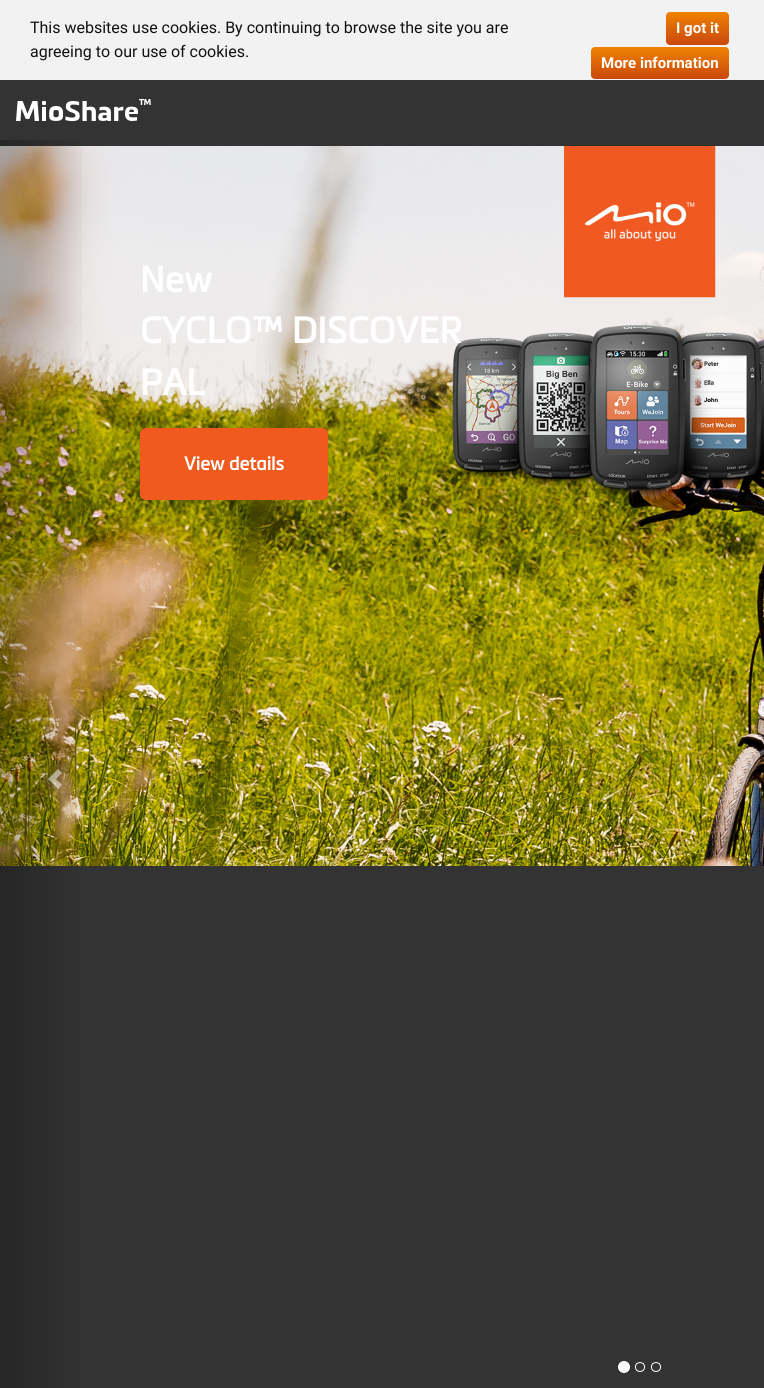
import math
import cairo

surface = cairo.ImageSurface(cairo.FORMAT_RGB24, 764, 1388)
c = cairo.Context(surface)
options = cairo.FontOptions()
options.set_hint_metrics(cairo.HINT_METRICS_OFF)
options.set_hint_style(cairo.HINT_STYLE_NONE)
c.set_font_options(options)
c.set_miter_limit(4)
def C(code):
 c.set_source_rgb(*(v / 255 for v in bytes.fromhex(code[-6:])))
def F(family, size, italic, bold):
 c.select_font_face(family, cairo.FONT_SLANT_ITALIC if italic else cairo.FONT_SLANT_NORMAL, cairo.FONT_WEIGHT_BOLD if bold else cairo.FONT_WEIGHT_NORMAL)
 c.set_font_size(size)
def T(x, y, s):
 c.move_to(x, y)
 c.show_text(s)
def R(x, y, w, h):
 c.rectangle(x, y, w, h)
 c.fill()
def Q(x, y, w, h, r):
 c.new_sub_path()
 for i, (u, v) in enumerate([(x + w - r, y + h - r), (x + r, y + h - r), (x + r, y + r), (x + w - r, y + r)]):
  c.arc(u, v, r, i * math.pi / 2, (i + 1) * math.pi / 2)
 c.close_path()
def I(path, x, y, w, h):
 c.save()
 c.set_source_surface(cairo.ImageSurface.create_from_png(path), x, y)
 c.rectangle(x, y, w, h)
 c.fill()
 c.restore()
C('333333')
c.paint()
C('f2f2f2')
R(0,0,764,80)
F('Roboto',16,0,0)
C('111111')
T(30,33,'This websites use cookies. By continuing to browse the site you are')
T(30,57,'agreeing to our use of cookies.')
gradient = cairo.LinearGradient(698,12,698,45)
gradient.add_color_stop_rgba(0,0.937,0.51,0,1)
gradient.add_color_stop_rgba(1,0.792,0.282,0.051,1)
c.set_source(gradient)
Q(666,12,63,33,4)
c.fill()
F('Roboto',15,0,1)
C('ffffff')
T(676,33,'I got it')
gradient = cairo.LinearGradient(660,47,660,79)
gradient.add_color_stop_rgba(0,0.937,0.51,0,1)
gradient.add_color_stop_rgba(1,0.792,0.282,0.051,1)
c.set_source(gradient)
Q(591,47,138,32,4)
c.fill()
C('ffffff')
T(601,68,'More information')
I('1.png',16,99,135,23)
I('2.png',0,146,764,720)
gradient = cairo.LinearGradient(0,770,90,770)
gradient.add_color_stop_rgba(0,0,0,0,.25)
gradient.add_color_stop_rgba(1,0,0,0,0)
c.set_source(gradient)
R(0,140,82,1248)
c.set_source_rgba(1,1,1,0.5)
c.new_path()
c.move_to(48,779)
c.line_to(58,789)
c.line_to(62,785)
c.line_to(56,779)
c.line_to(62,773)
c.line_to(58,769)
c.close_path()
c.fill()
F('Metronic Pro',36,0,1)
C('ffffff')
T(140,292,'New')
T(140,343,'CYCLO™ DISCOVER')
T(140,395,'PAL')
C('f05a1e')
Q(140.5,428.5,187,71,5.5)
c.fill_preserve()
c.set_line_width(1)
c.stroke()
F('Metronic Pro',18.5,0,1)
C('ffffff')
T(184,470,'View details')
c.new_path()
c.arc(624,1367,5.5,0,2 * math.pi)
c.fill_preserve()
c.stroke()
c.arc(640,1367,4.5,0,2 * math.pi)
c.stroke()
c.arc(656,1367,4.5,0,2 * math.pi)
c.stroke()
surface.write_to_png('o.png')
